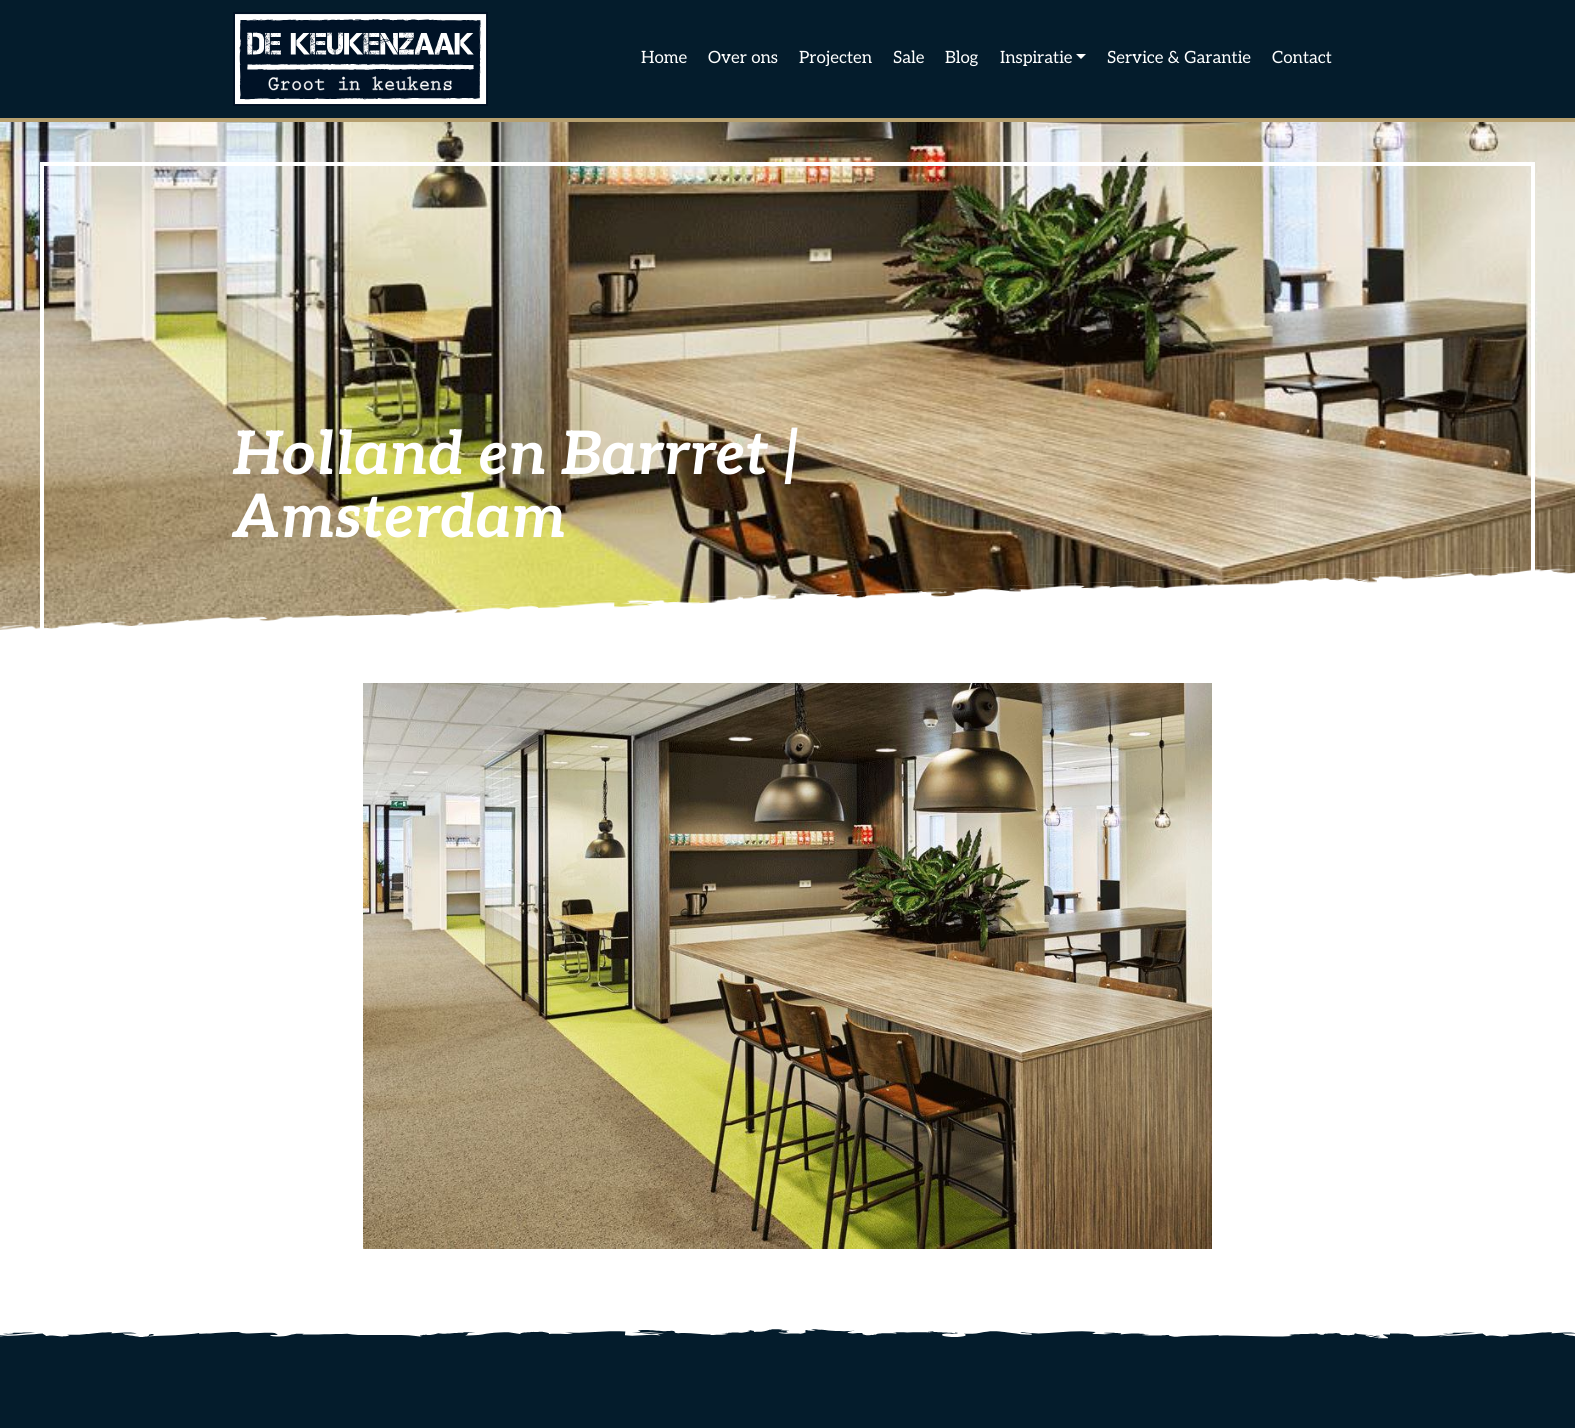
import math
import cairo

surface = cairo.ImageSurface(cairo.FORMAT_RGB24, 1575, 1428)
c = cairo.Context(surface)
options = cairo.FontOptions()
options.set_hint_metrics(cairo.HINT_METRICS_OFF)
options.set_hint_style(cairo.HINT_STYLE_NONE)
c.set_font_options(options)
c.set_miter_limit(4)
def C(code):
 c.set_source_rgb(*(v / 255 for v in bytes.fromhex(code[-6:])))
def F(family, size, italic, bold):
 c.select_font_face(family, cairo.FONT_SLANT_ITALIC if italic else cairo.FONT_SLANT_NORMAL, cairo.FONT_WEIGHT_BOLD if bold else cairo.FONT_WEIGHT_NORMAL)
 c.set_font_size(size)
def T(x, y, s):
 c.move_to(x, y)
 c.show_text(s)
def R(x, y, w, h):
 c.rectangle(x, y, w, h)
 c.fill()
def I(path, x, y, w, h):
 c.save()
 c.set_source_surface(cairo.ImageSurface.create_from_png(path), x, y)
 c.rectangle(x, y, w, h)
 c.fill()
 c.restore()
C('ffffff')
c.paint()
C('041c2c')
R(0,0,1575,118)
C('b69f6e')
R(0,118,1575,4)
I('1.png',233,12,255,94)
F('Aleo',16.9,0,0)
C('ffffff')
T(641,63,'Home')
T(708,63,'Over ons')
T(799,63,'Projecten')
T(893,63,'Sale')
T(945,63,'Blog')
T(1000,63,'Inspiratie')
c.new_path()
c.move_to(1076,54)
c.line_to(1086,54)
c.line_to(1081,59)
c.close_path()
c.fill()
T(1107,63,'Service & Garantie')
T(1272,63,'Contact')
I('2.png',0,122,1575,508)
I('3.png',0,565,1575,128)
c.save()
c.rectangle(0,122,1575,571)
c.clip()
c.rectangle(42,164,1491,567)
c.set_line_width(4)
c.stroke()
c.restore()
F('Aleo',60,1,1)
T(233,474,'Holland en Barrret |')
T(233,537,'Amsterdam')
I('4.png',363,683,849,566)
I('5.png',0,1329,1575,99)
surface.write_to_png('o.png')
